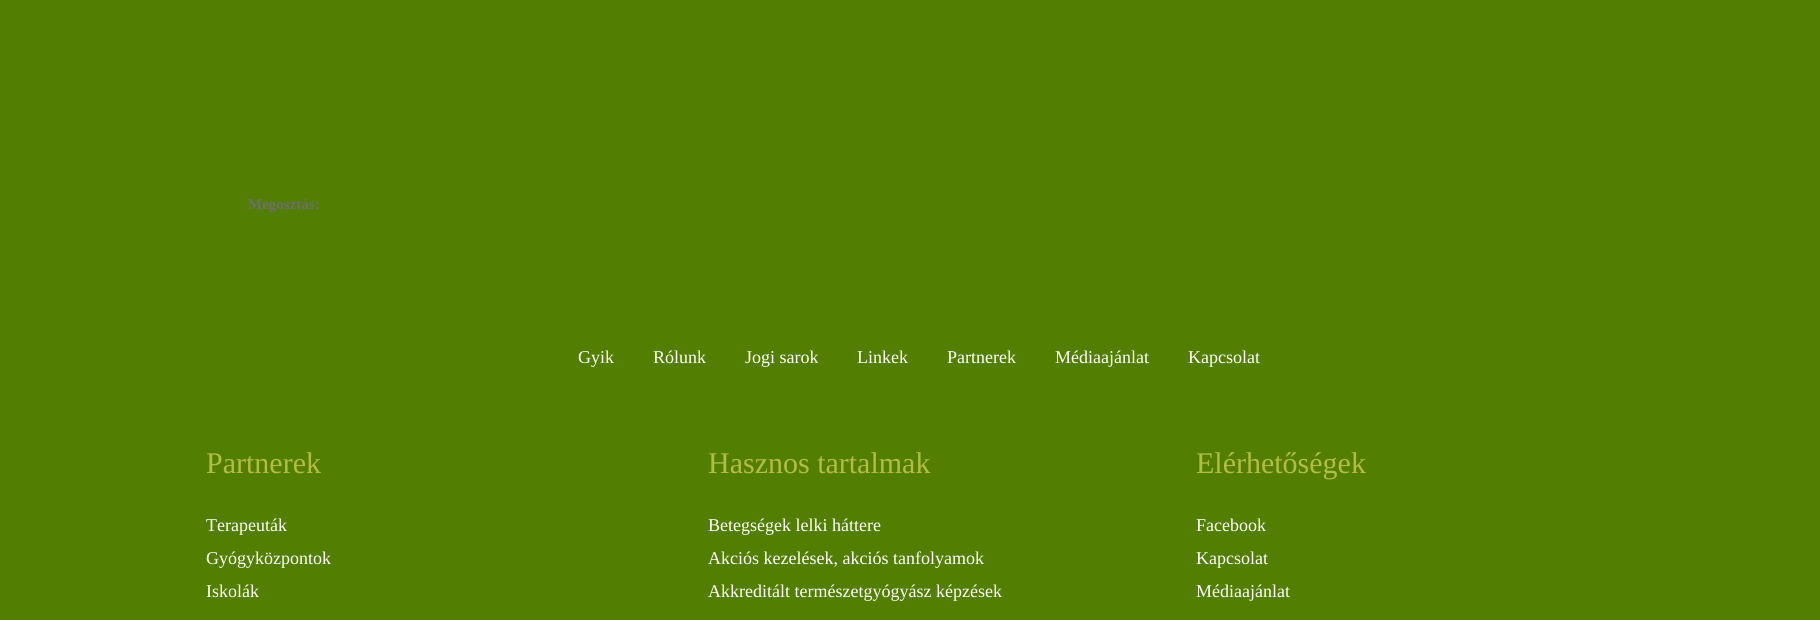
import math
import cairo

surface = cairo.ImageSurface(cairo.FORMAT_RGB24, 1820, 620)
c = cairo.Context(surface)
options = cairo.FontOptions()
options.set_hint_metrics(cairo.HINT_METRICS_OFF)
options.set_hint_style(cairo.HINT_STYLE_NONE)
c.set_font_options(options)
c.set_miter_limit(4)
def C(code):
 c.set_source_rgb(*(v / 255 for v in bytes.fromhex(code[-6:])))
def F(family, size, italic, bold):
 c.select_font_face(family, cairo.FONT_SLANT_ITALIC if italic else cairo.FONT_SLANT_NORMAL, cairo.FONT_WEIGHT_BOLD if bold else cairo.FONT_WEIGHT_NORMAL)
 c.set_font_size(size)
def T(x, y, s):
 c.move_to(x, y)
 c.show_text(s)
C('527e01')
c.paint()
F('Liberation Serif',15,0,1)
C('6e6e6e')
T(248,209,'Megosztás:')
F('Liberation Serif',18,0,0)
C('ffffff')
T(578,363,'Gyik')
T(653,363,'Rólunk')
T(745,363,'Jogi sarok')
T(857,363,'Linkek')
T(947,363,'Partnerek')
T(1055,363,'Médiaajánlat')
T(1188,363,'Kapcsolat')
F('Liberation Serif',30,0,0)
C('b3bd41')
T(206,473,'Partnerek')
F('Liberation Serif',18,0,0)
C('ffffff')
T(206,531,'Terapeuták')
T(206,564,'Gyógyközpontok')
T(206,597,'Iskolák')
F('Liberation Serif',30,0,0)
C('b3bd41')
T(708,473,'Hasznos tartalmak')
F('Liberation Serif',18,0,0)
C('ffffff')
T(708,531,'Betegségek lelki háttere')
T(708,564,'Akciós kezelések, akciós tanfolyamok')
T(708,597,'Akkreditált természetgyógyász képzések')
F('Liberation Serif',30,0,0)
C('b3bd41')
T(1196,473,'Elérhetőségek')
F('Liberation Serif',18,0,0)
C('ffffff')
T(1196,531,'Facebook')
T(1196,564,'Kapcsolat')
T(1196,597,'Médiaajánlat')
surface.write_to_png('o.png')
